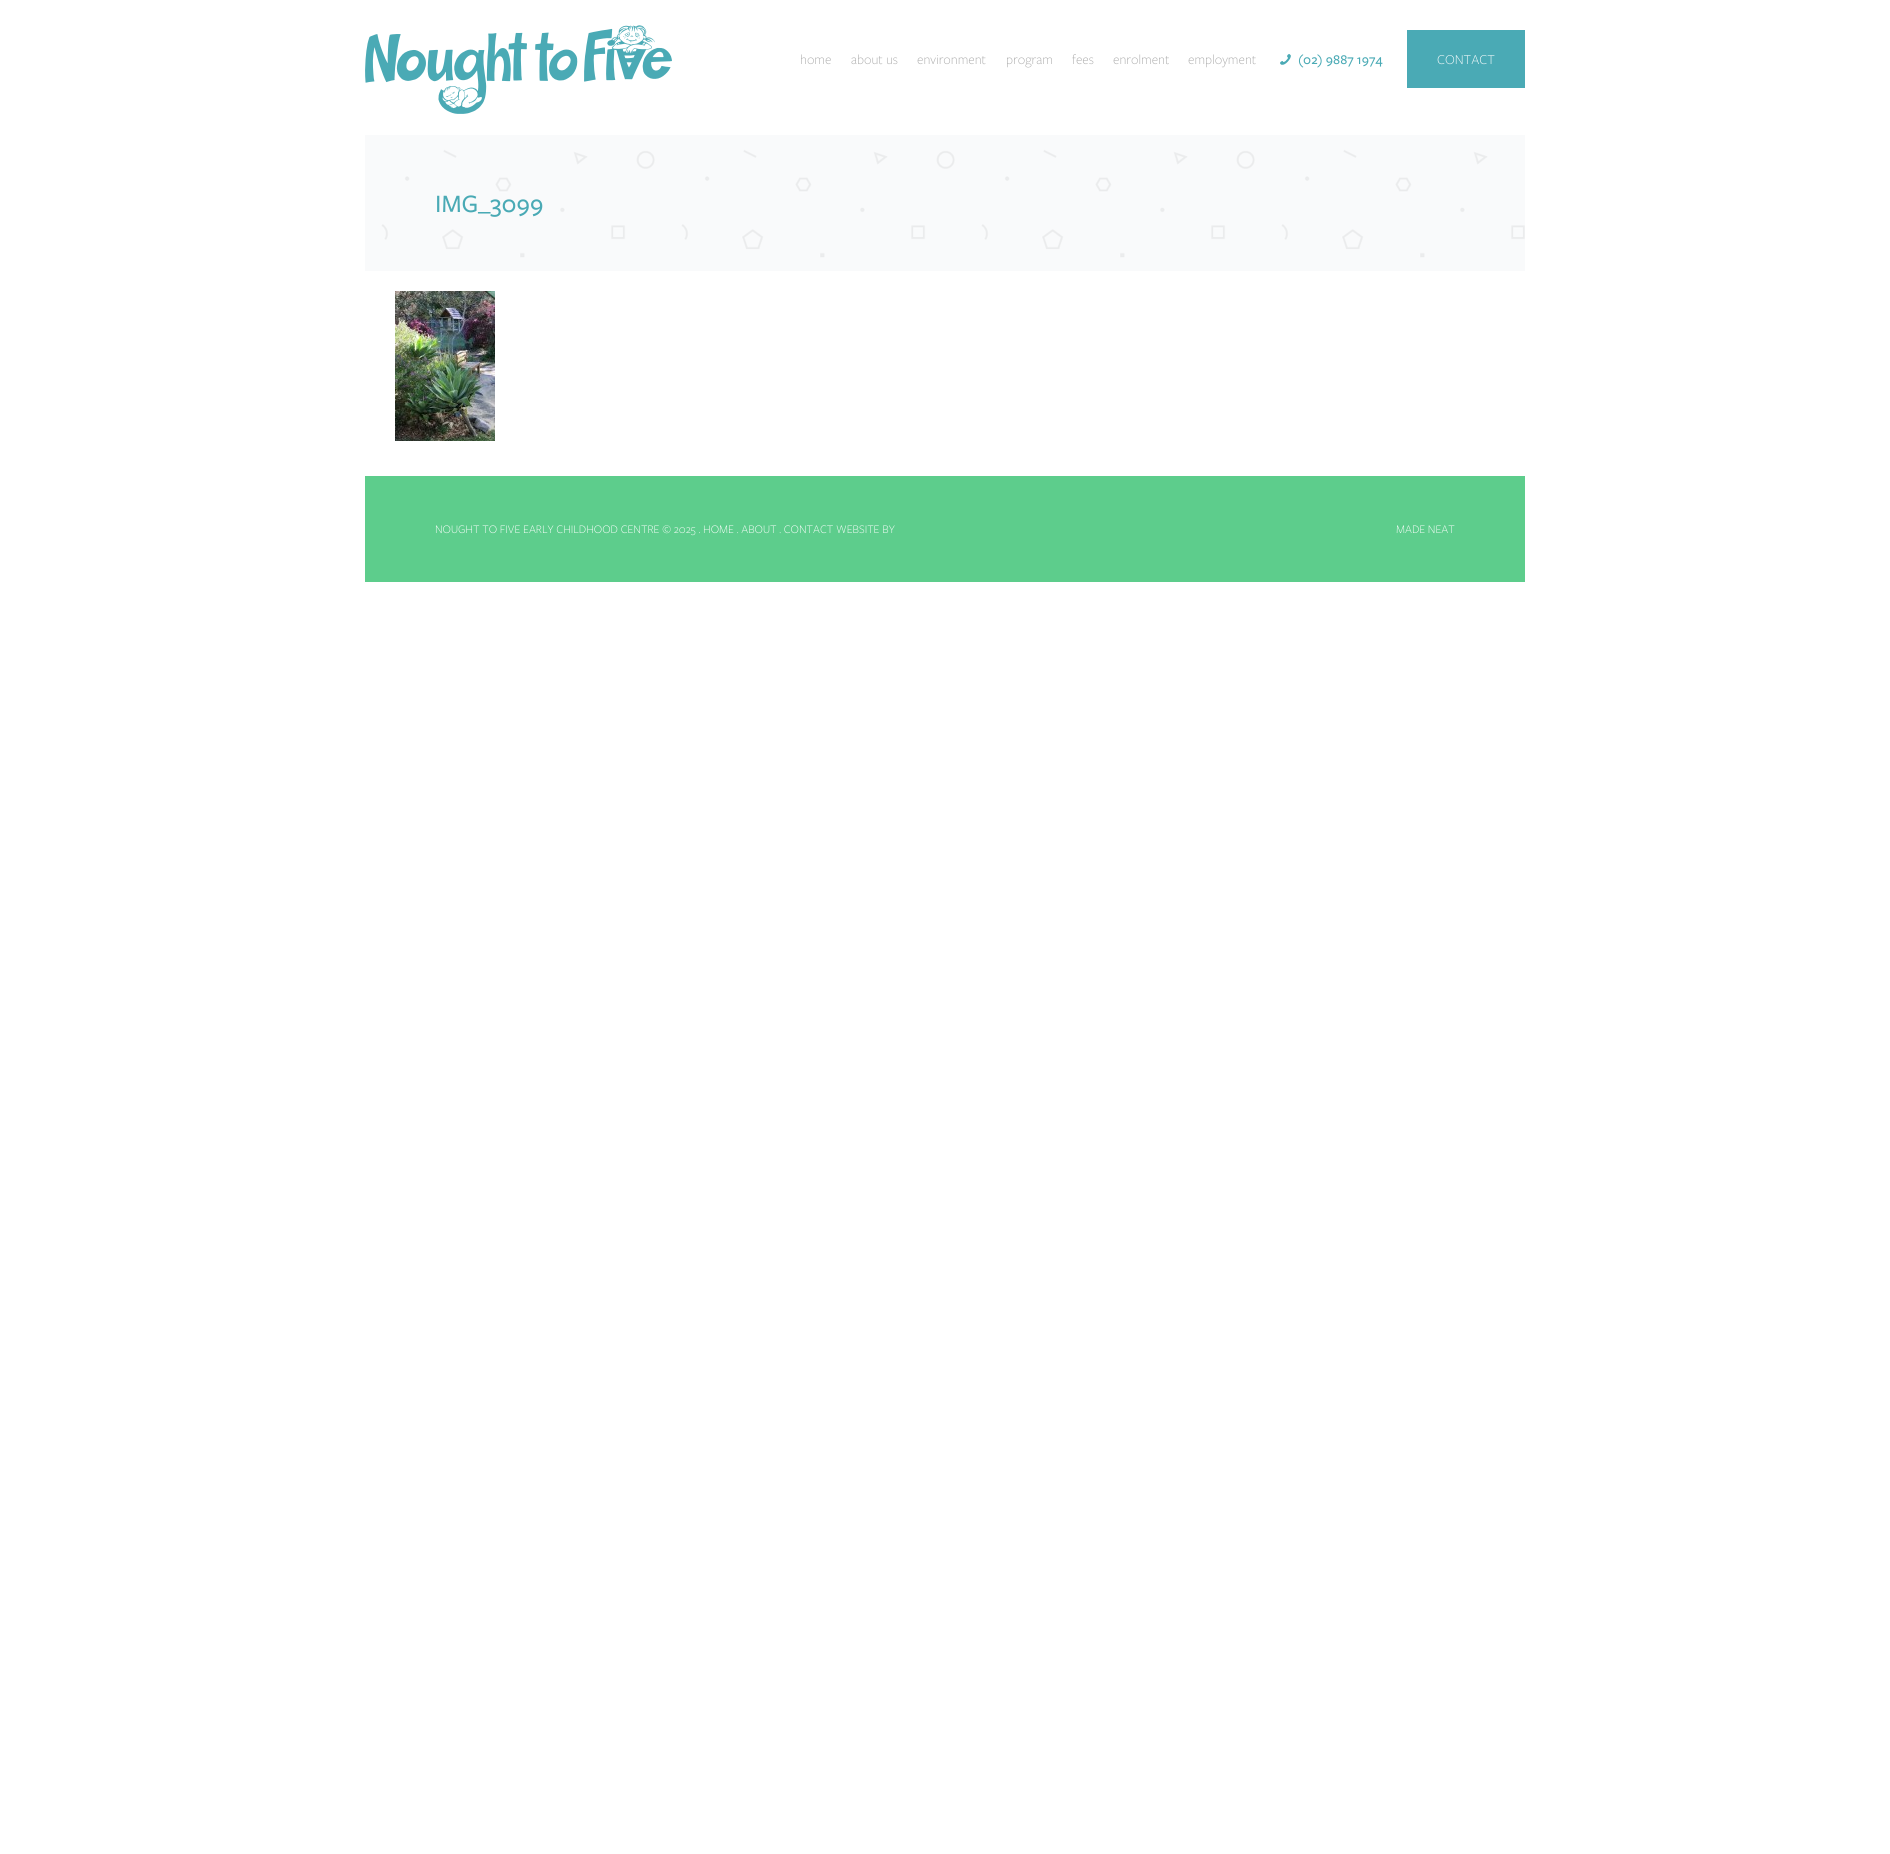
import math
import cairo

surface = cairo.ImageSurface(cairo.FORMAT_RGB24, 1890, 1854)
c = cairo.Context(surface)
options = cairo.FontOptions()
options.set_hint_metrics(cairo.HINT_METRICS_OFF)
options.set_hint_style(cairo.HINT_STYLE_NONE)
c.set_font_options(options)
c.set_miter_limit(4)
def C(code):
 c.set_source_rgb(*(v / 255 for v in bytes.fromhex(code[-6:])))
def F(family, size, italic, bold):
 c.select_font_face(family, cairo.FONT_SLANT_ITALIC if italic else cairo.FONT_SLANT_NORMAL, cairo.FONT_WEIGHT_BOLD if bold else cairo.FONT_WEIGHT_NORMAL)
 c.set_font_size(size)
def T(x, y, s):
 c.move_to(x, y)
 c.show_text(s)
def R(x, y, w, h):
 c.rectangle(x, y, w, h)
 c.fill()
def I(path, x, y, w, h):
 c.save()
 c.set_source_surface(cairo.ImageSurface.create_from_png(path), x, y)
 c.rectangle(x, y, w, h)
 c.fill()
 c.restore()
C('ffffff')
c.paint()
I('1.png',365,25,307,89)
F('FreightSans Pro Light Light',14,0,0)
C('aaaaaa')
T(800,64,'home')
T(851,64,'about us')
T(917,64,'environment')
T(1006,64,'program')
T(1072,64,'fees')
T(1113,64,'enrolment')
T(1188,64,'employment')
I('2.png',1280,54,11,11)
F('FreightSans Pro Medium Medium',14,0,0)
C('4aaab5')
T(1298,64,'(02) 9887 1974')
R(1407,30,118,58)
F('FreightSans Pro Light Light',14,0,0)
C('ffffff')
T(1437,64,'CONTACT')
I('3.png',365,135,1160,136)
F('FreightSans Pro Medium Medium',26,0,0)
C('4aaab5')
T(435,212,'IMG_3099')
I('4.png',395,291,100,150)
C('5dcd8c')
R(365,476,1160,106)
F('FreightSans Pro Light Light',12,0,0)
C('ffffff')
T(435,533,'NOUGHT TO FIVE EARLY CHILDHOOD CENTRE © 2025 . HOME . ABOUT . CONTACT WEBSITE BY')
T(1396,533,'MADE NEAT')
surface.write_to_png('o.png')
